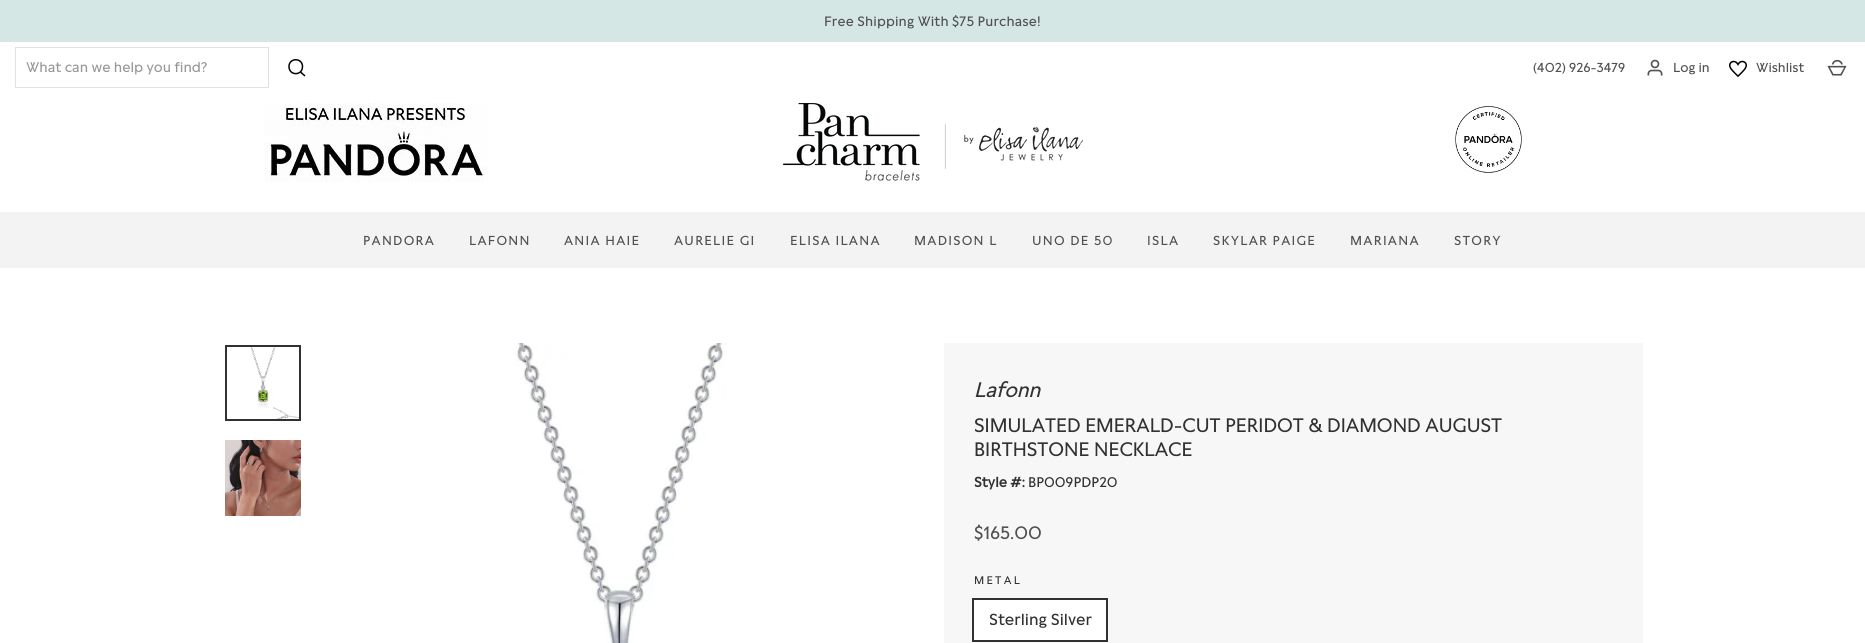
import math
import cairo

surface = cairo.ImageSurface(cairo.FORMAT_RGB24, 1865, 643)
c = cairo.Context(surface)
options = cairo.FontOptions()
options.set_hint_metrics(cairo.HINT_METRICS_OFF)
options.set_hint_style(cairo.HINT_STYLE_NONE)
c.set_font_options(options)
c.set_miter_limit(4)
def C(code):
 c.set_source_rgb(*(v / 255 for v in bytes.fromhex(code[-6:])))
def F(family, size, italic, bold):
 c.select_font_face(family, cairo.FONT_SLANT_ITALIC if italic else cairo.FONT_SLANT_NORMAL, cairo.FONT_WEIGHT_BOLD if bold else cairo.FONT_WEIGHT_NORMAL)
 c.set_font_size(size)
def T(x, y, s):
 c.move_to(x, y)
 c.show_text(s)
def L(x, y, s, letter, word):
 c.move_to(x, y)
 for ch in s:
  c.show_text(ch)
  c.rel_move_to(letter + word * (ch == ' '), 0)
def R(x, y, w, h):
 c.rectangle(x, y, w, h)
 c.fill()
def I(path, x, y, w, h):
 c.save()
 c.set_source_surface(cairo.ImageSurface.create_from_png(path), x, y)
 c.rectangle(x, y, w, h)
 c.fill()
 c.restore()
C('ffffff')
c.paint()
C('d5e7e5')
R(0,0,1865,42)
F('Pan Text',13.6,0,0)
C('505050')
L(824,26,'Free Shipping With $75 Purchase!',.15,0)
c.rectangle(15.5,47.5,253,40)
C('e1e1e1')
c.set_line_width(1)
c.stroke()
F('Pan Text',14,0,0)
C('989898')
T(26,72,'What can we help you find?')
c.new_path()
c.move_to(302.5,66.5)
c.curve_to(302.5,76,289,76,289,66.5)
c.curve_to(289,57.5,302.5,57.5,302.5,66.5)
c.close_path()
c.move_to(305,76)
c.line_to(300.5,72)
C('000000')
c.set_line_width(1.5)
c.stroke()
F('Pan Text',13,0,0)
C('505050')
T(1533,72,'(402) 926-3479')
I('1.png',1647,59,16,17)
T(1673,72,'Log in')
I('2.png',1729,60,18,18)
T(1756,72,'Wishlist')
I('3.png',1827,59,20,17)
I('4.png',264,103,224,79)
I('5.png',783,103,300,78)
I('6.png',1455,106,67,67)
C('f3f3f3')
R(0,212,1865,56)
C('505050')
L(363,245,'PANDORA',1.25,0)
L(469,245,'LAFONN',1.25,0)
L(564,245,'ANIA HAIE',1.25,0)
L(674,245,'AURELIE GI',1.25,0)
L(790,245,'ELISA ILANA',1.25,0)
L(914,245,'MADISON L',1.25,0)
L(1032,245,'UNO DE 50',1.25,0)
L(1147,245,'ISLA',1.25,0)
L(1213,245,'SKYLAR PAIGE',1.25,0)
L(1350,245,'MARIANA',1.25,0)
L(1454,245,'STORY',1.25,0)
I('7.png',250,347,49,72)
c.rectangle(226,346,74,74)
C('313131')
c.set_line_width(2)
c.stroke()
I('8.png',225,440,76,76)
I('9.png',515,343,211,300)
C('f7f7f7')
R(944,343,699,300)
F('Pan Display',21,1,0)
C('313131')
T(974,397,'Lafonn')
F('Pan Display',19.5,0,0)
T(974,432,'SIMULATED EMERALD-CUT PERIDOT & DIAMOND AUGUST')
T(974,456,'BIRTHSTONE NECKLACE')
F('Pan Text',14,0,1)
T(974,487,'Style #:')
F('Pan Text',14,0,0)
T(1028,487,'BP009PDP20')
F('Pan Text',18,0,0)
C('505050')
T(974,539,'$165.00')
F('Pan Text',11,0,0)
C('313131')
L(974,584,'METAL',2.25,0)
c.rectangle(973,599,134,42)
c.stroke()
C('ffffff')
R(974,600,132,40)
F('Pan Text',16,0,0)
C('313131')
T(989,625,'Sterling Silver')
surface.write_to_png('o.png')
